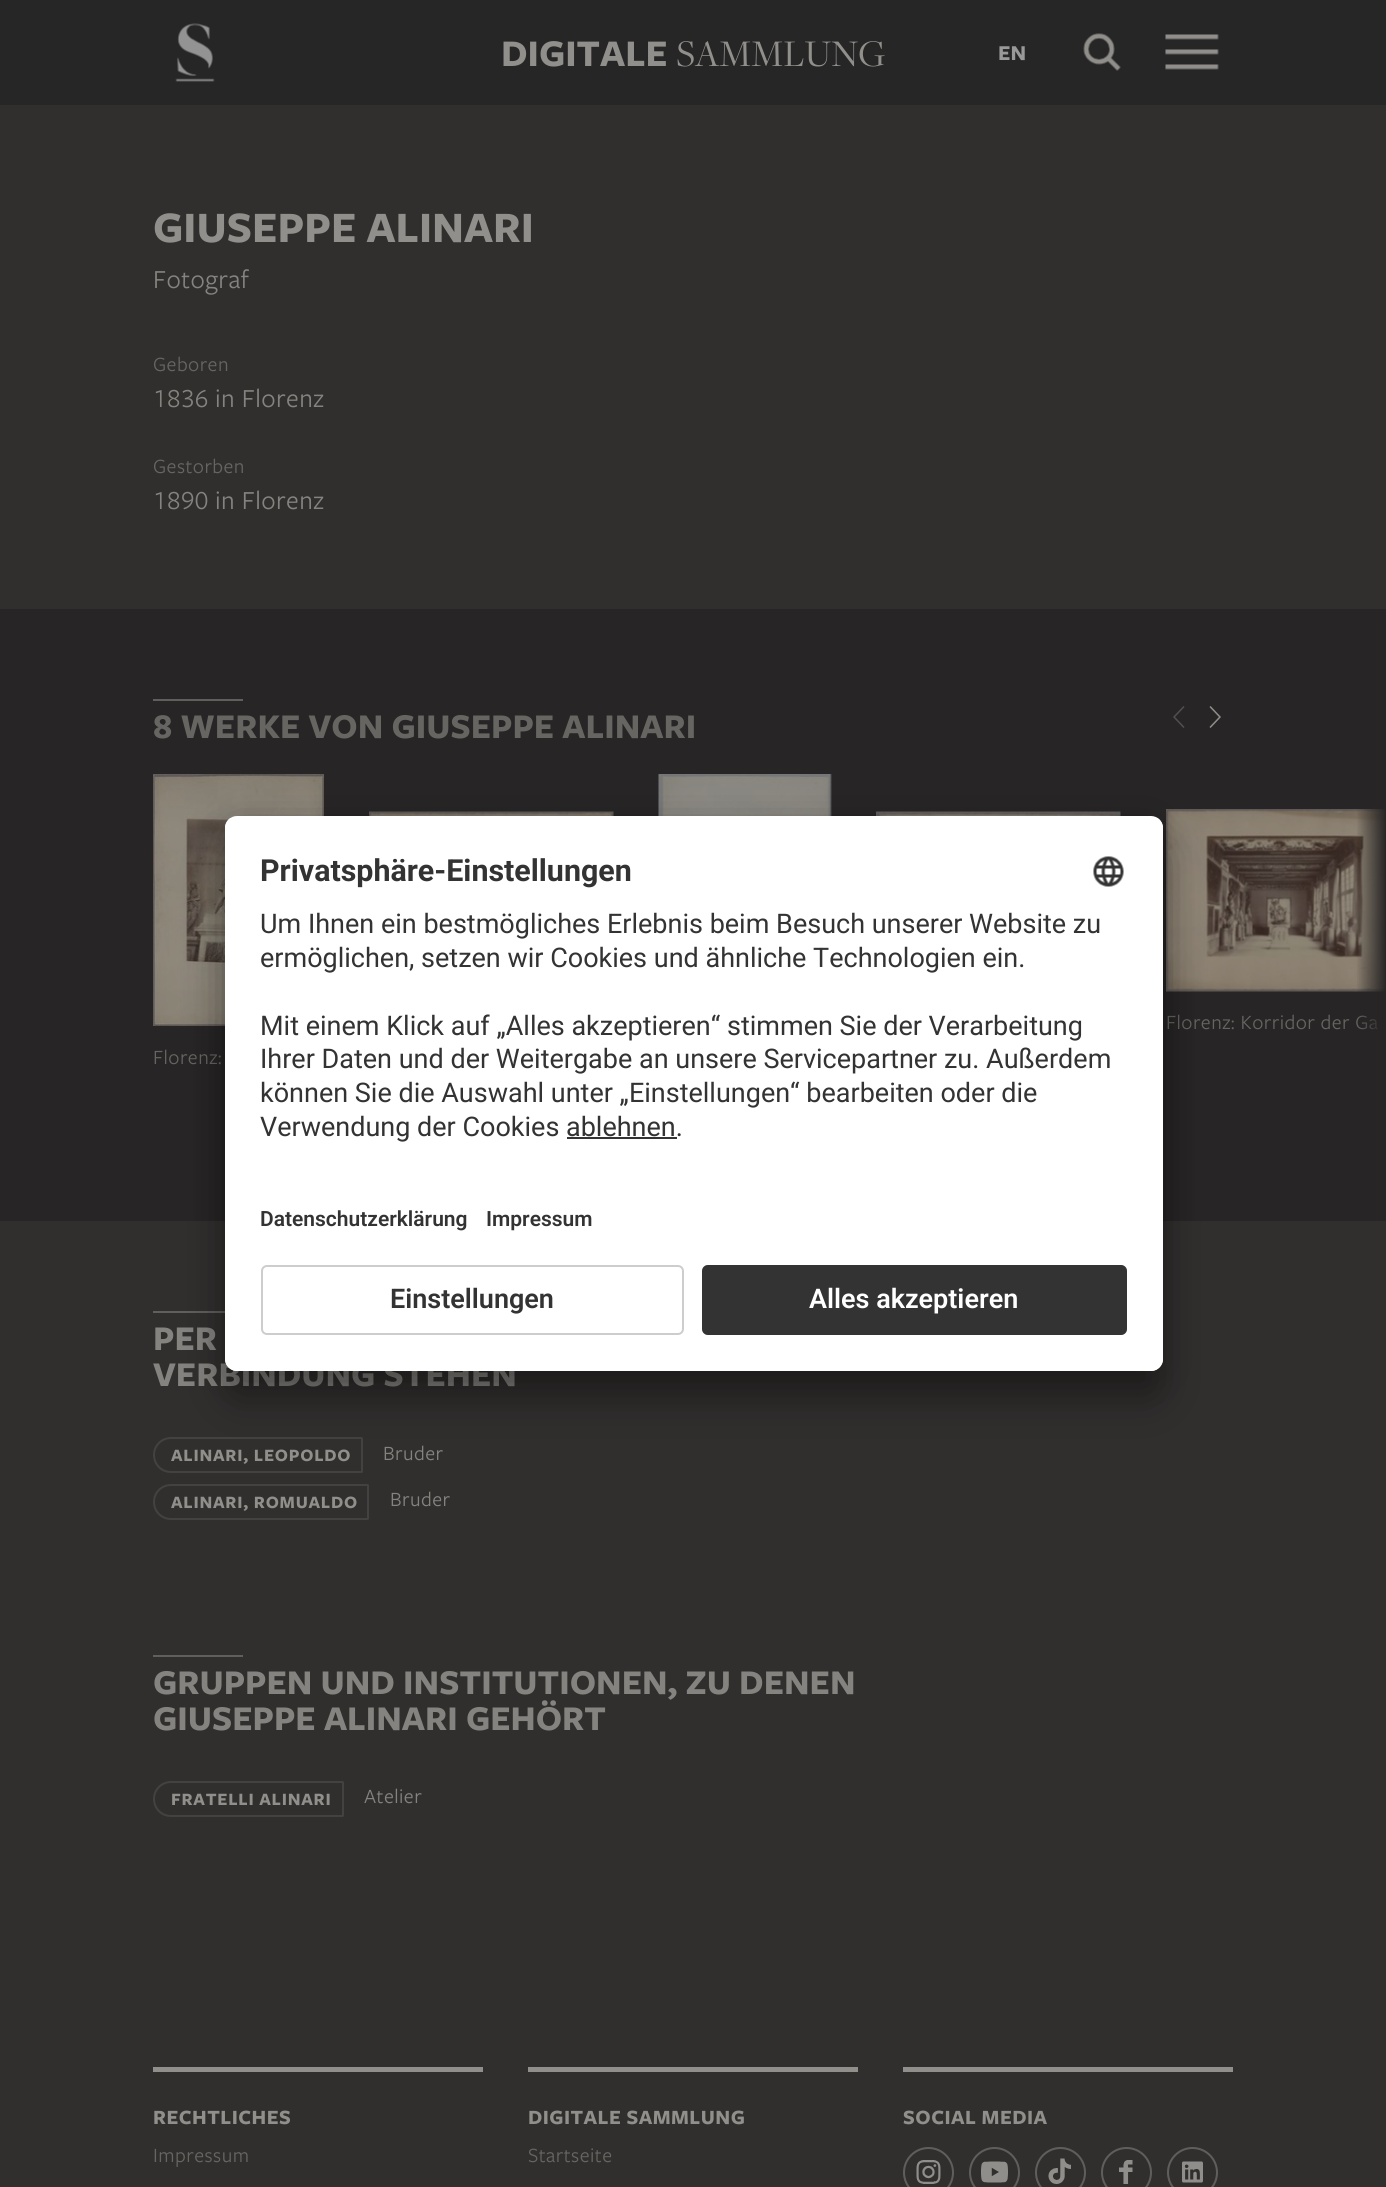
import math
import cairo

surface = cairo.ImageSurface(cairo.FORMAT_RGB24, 1386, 2187)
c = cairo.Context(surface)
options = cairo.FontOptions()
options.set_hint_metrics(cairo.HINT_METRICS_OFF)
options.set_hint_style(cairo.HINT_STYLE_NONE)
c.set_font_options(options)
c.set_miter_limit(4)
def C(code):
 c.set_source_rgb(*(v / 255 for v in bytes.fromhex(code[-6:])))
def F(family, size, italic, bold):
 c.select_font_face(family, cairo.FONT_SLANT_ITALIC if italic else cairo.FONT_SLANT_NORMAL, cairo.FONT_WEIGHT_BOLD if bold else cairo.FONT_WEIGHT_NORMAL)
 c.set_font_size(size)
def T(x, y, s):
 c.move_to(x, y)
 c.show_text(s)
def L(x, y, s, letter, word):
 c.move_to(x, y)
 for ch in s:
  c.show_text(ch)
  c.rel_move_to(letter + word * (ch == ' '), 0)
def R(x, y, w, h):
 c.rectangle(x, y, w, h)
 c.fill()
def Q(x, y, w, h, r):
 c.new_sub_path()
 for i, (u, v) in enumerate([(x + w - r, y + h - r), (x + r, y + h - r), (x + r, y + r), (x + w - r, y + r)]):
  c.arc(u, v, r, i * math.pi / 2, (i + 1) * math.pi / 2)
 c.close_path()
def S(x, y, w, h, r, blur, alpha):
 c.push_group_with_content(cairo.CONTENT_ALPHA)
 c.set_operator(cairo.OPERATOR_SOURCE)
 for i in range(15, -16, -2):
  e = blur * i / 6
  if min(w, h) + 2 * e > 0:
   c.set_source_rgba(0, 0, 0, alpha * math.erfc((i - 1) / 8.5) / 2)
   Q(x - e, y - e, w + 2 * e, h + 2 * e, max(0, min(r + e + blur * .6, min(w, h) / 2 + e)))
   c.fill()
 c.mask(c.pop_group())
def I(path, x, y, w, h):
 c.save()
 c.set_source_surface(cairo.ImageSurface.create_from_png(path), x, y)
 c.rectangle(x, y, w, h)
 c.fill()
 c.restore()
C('312f2e')
c.paint()
C('272626')
R(0,0,1386,105)
I('1.png',175,23,40,59)
F('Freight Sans',39,0,1)
C('908f8b')
T(501,66,'DIGITALE')
F('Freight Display',39,0,0)
T(676,66,'SAMMLUNG')
F('Freight Sans',22,0,1)
C('999999')
T(998,60,'EN')
I('2.png',1083,33,38,38)
I('3.png',1165,34,54,36)
F('Freight Sans',45,0,1)
C('908f8b')
T(153,242,'GIUSEPPE ALINARI')
F('Freight Sans',27,0,0)
C('858380')
L(153,288,'Fotograf',.45,0)
F('Freight Sans',21,0,0)
C('666562')
L(153,371,'Geboren',.45,0)
F('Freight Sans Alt',27,0,0)
C('858380')
L(153,407,'1836',.45,0)
F('Freight Sans',27,0,0)
L(215,407,'in Florenz',.45,0)
F('Freight Sans',21,0,0)
C('666562')
L(153,473,'Gestorben',.45,0)
F('Freight Sans Alt',27,0,0)
C('858380')
L(153,509,'1890',.45,0)
F('Freight Sans',27,0,0)
L(215,509,'in Florenz',.45,0)
C('272525')
R(0,609,1386,612)
C('615f5d')
R(153,699,90,2)
F('Freight Sans',36,0,1)
C('666562')
T(153,738,'8 WERKE VON GIUSEPPE ALINARI')
c.new_path()
c.move_to(1184,706.5)
c.line_to(1174,717)
c.line_to(1184,727.5)
C('51504e')
c.set_line_width(1.5)
c.stroke()
c.new_path()
c.move_to(1210,727.5)
c.line_to(1220,717)
c.line_to(1210,706.5)
C('918f8c')
c.stroke()
I('7.png',1166,809,220,183)
F('Freight Sans',21,0,0)
C('666562')
L(1166,1029,'Florenz: Korridor der Ga',.45,0)
gradient = cairo.LinearGradient(1356,923,1386,923)
gradient.add_color_stop_rgba(0,0.153,0.145,0.145,0)
gradient.add_color_stop_rgba(1,0.153,0.145,0.145,1)
c.set_source(gradient)
R(1357,809,29,221)
I('4.png',369,811,245,5)
I('5.png',658,774,174,42)
I('6.png',876,811,245,5)
I('8.png',153,774,171,252)
C('666562')
L(153,1064,'Florenz:',.45,0)
C('615f5d')
R(153,1311,72,2)
F('Freight Sans',36,0,1)
C('858380')
T(153,1350,'PER')
T(153,1386,'VERBINDUNG STEHEN')
c.new_path()
c.move_to(171,1438)
c.line_to(361.5,1438)
c.curve_to(362,1438,362,1438,362,1438.5)
c.line_to(362,1471.5)
c.curve_to(362,1472,362,1472,361.5,1472)
c.line_to(171,1472)
c.curve_to(161.5,1472,154,1464.5,154,1455)
c.curve_to(154,1445.5,161.5,1438,171,1438)
c.close_path()
C('434240')
c.set_line_width(2)
c.stroke()
F('Freight Sans',18,0,1)
C('908f8b')
L(171,1461,'ALINARI, LEOPOLDO',.75,0)
F('Freight Sans',21,0,0)
C('858380')
L(383,1460,'Bruder',.45,0)
c.new_path()
c.move_to(171,1485)
c.line_to(367.5,1485)
c.curve_to(368,1485,368,1485,368,1485.5)
c.line_to(368,1518.5)
c.curve_to(368,1519,368,1519,367.5,1519)
c.line_to(171,1519)
c.curve_to(161.5,1519,154,1511.5,154,1502)
c.curve_to(154,1492.5,161.5,1485,171,1485)
c.close_path()
C('434240')
c.stroke()
F('Freight Sans',18,0,1)
C('908f8b')
L(171,1508,'ALINARI, ROMUALDO',.75,0)
F('Freight Sans',21,0,0)
C('858380')
L(390,1506,'Bruder',.45,0)
C('615f5d')
R(153,1655,90,2)
F('Freight Sans',36,0,1)
C('858380')
T(153,1694,'GRUPPEN UND INSTITUTIONEN, ZU DENEN')
T(153,1730,'GIUSEPPE ALINARI GEHÖRT')
c.new_path()
c.move_to(171,1782)
c.line_to(342.5,1782)
c.curve_to(343,1782,343,1782,343,1782.5)
c.line_to(343,1815.5)
c.curve_to(343,1816,343,1816,342.5,1816)
c.line_to(171,1816)
c.curve_to(161.5,1816,154,1808.5,154,1799)
c.curve_to(154,1789.5,161.5,1782,171,1782)
c.close_path()
C('434240')
c.stroke()
F('Freight Sans',18,0,1)
C('908f8b')
L(171,1805,'FRATELLI ALINARI',.75,0)
F('Freight Sans',21,0,0)
C('858380')
L(364,1803,'Atelier',.45,0)
C('000000')
S(225,846,938,555,12,21,.3)
S(225,824,938,555,12,19.5,.22)
C('ffffff')
Q(225,816,938,555,12)
c.fill()
c.save()
Q(225,816,938,555,12)
c.clip()
c.new_path()
c.move_to(237,816)
c.line_to(1151,816)
c.curve_to(1157.5,816,1163,821.5,1163,828)
c.line_to(1163,1253)
c.line_to(225,1253)
c.line_to(225,828)
c.curve_to(225,821.5,230.5,816,237,816)
c.close_path()
c.clip()
R(225,818,938,435)
c.restore()
F('Roboto',30.4,0,1)
C('333333')
T(260,881,'Privatsphäre-Einstellungen')
I('9.png',1093,856,31,31)
F('Roboto',27,0,0)
T(260,933,'Um Ihnen ein bestmögliches Erlebnis beim Besuch unserer Website zu')
T(260,967,'ermöglichen, setzen wir Cookies und ähnliche Technologien ein.')
T(260,1035,'Mit einem Klick auf „Alles akzeptieren“ stimmen Sie der Verarbeitung')
T(260,1068,'Ihrer Daten und der Weitergabe an unsere Servicepartner zu. Außerdem')
T(260,1102,'können Sie die Auswahl unter „Einstellungen“ bearbeiten oder die')
T(260,1136,'Verwendung der Cookies ablehnen.')
R(567,1137,110,2)
F('Roboto SemiBold',21,0,0)
T(260,1226,'Datenschutzerklärung')
T(486,1226,'Impressum')
C('ffffff')
c.new_path()
c.move_to(225,1253)
c.line_to(1163,1253)
c.line_to(1163,1359)
c.curve_to(1163,1365.5,1157.5,1371,1151,1371)
c.line_to(237,1371)
c.curve_to(230.5,1371,225,1365.5,225,1359)
c.close_path()
c.fill()
Q(262,1266,421,68,5)
C('cdcdcd')
c.stroke()
F('Roboto SemiBold',27,0,0)
C('333333')
T(390,1308,'Einstellungen')
Q(702,1265,425,70,6)
c.fill()
Q(703,1266,423,68,5)
c.set_source_rgba(0.208,0.208,0.208,0.25)
c.stroke()
C('ffffff')
T(809,1308,'Alles akzeptieren')
C('908f8b')
R(153,2067,330,5)
F('Freight Sans',21,0,1)
L(153,2124,'RECHTLICHES',.45,0)
F('Freight Sans',21,0,0)
C('666562')
L(153,2162,'Impressum',.45,0)
C('908f8b')
R(528,2067,330,5)
F('Freight Sans',21,0,1)
L(528,2124,'DIGITALE SAMMLUNG',.45,0)
F('Freight Sans',21,0,0)
C('666562')
L(528,2162,'Startseite',.45,0)
C('908f8b')
R(903,2067,330,5)
F('Freight Sans',21,0,1)
L(903,2124,'SOCIAL MEDIA',.45,0)
c.new_path()
c.arc(928.5,2172.5,24.5,0,2 * math.pi)
C('605e5d')
c.stroke()
I('10.png',916,2160,25,24)
c.arc(994.5,2172.5,24.5,0,2 * math.pi)
c.stroke()
I('11.png',981,2161,27,22)
c.arc(1060.5,2172.5,24.5,0,2 * math.pi)
c.stroke()
I('12.png',1048,2158,23,26)
c.arc(1126.5,2172.5,24.5,0,2 * math.pi)
c.stroke()
I('13.png',1119,2160,14,24)
c.arc(1192.5,2172.5,24.5,0,2 * math.pi)
c.stroke()
I('14.png',1182,2161,21,22)
surface.write_to_png('o.png')
